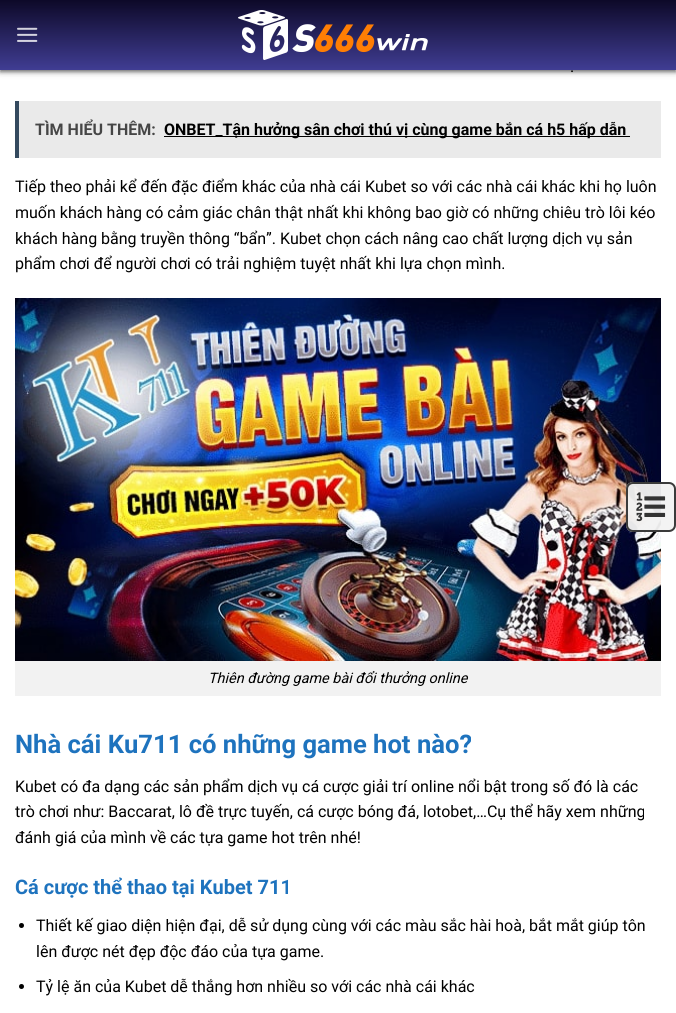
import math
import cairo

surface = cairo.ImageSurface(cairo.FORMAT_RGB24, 676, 1013)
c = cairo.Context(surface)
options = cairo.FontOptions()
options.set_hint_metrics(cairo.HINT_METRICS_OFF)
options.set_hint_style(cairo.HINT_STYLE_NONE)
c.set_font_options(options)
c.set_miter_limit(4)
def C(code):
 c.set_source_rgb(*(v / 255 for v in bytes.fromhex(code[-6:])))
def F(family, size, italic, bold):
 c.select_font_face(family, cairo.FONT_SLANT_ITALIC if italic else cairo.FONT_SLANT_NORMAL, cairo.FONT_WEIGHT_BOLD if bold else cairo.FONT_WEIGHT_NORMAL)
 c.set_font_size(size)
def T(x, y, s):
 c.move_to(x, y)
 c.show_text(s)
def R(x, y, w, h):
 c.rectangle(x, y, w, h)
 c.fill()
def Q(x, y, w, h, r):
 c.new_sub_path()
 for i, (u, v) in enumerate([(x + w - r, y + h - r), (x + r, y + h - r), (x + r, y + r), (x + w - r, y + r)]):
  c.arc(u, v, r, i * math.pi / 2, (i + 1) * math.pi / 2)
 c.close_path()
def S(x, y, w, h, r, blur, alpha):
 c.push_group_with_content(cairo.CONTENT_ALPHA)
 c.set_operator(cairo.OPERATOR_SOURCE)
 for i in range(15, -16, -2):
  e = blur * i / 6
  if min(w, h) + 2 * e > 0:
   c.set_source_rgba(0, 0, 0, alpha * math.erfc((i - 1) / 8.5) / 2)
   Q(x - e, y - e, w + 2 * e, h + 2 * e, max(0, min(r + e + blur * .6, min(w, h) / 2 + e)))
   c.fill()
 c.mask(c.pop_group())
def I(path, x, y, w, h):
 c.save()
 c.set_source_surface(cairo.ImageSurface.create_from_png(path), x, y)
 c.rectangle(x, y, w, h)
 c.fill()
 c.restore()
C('ffffff')
c.paint()
C('000000')
S(1,1,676,70,0,5,.15)
S(0,2,676,70,0,2,.5)
gradient = cairo.LinearGradient(338,0,338,70)
gradient.add_color_stop_rgba(0,0.051,0.035,0.157,1)
gradient.add_color_stop_rgba(1,0.251,0.239,0.576,1)
c.set_source(gradient)
R(0,0,676,70)
I('1.png',17,27,21,15)
I('2.png',238,10,190,50)
F('Roboto',16,0,0)
C('000000')
T(570,72,'.')
C('eaeaea')
R(19,101,642,57)
C('34495e')
R(15,101,4,57)
F('Roboto',16,0,1)
C('464646')
T(35,135,'TÌM HIỂU THÊM:')
C('000000')
R(164,136,466,1)
T(164,135,'ONBET_Tận hưởng sân chơi thú vị cùng game bắn cá h5 hấp dẫn')
F('Roboto',16,0,0)
T(15,192,'Tiếp theo phải kể đến đặc điểm khác của nhà cái Kubet so với các nhà cái khác khi họ luôn')
T(15,218,'muốn khách hàng có cảm giác chân thật nhất khi không bao giờ có những chiêu trò lôi kéo')
T(15,244,'khách hàng bằng truyền thông “bẩn”. Kubet chọn cách nâng cao chất lượng dịch vụ sản')
T(15,269,'phẩm chơi để người chơi có trải nghiệm tuyệt nhất khi lựa chọn mình.')
I('3.png',15,298,646,363)
C('f2f2f2')
R(15,661,646,35)
F('Roboto',14.4,1,0)
C('000000')
T(208,683,'Thiên đường game bài đổi thưởng online')
F('Roboto',25.6,0,1)
C('1e73be')
T(15,753,'Nhà cái Ku711 có những game hot nào?')
F('Roboto',16,0,0)
C('000000')
T(15,792,'Kubet có đa dạng các sản phẩm dịch vụ cá cược giải trí online nổi bật trong số đó là các')
T(15,817,'trò chơi như: Baccarat, lô đề trực tuyến, cá cược bóng đá, lotobet,…Cụ thể hãy xem những')
T(15,843,'đánh giá của mình về các tựa game hot trên nhé!')
F('Roboto',20,0,1)
C('1e73be')
T(15,894,'Cá cược thể thao tại Kubet 711')
C('000000')
c.new_path()
c.arc(21.5,925.5,2.5,0,2 * math.pi)
c.fill()
F('Roboto',16,0,0)
T(36,931,'Thiết kế giao diện hiện đại, dễ sử dụng cùng với các màu sắc hài hoà, bắt mắt giúp tôn')
T(36,957,'lên được nét đẹp độc đáo của tựa game.')
c.new_path()
c.arc(21.5,986.5,2.5,0,2 * math.pi)
c.fill()
T(36,992,'Tỷ lệ ăn của Kubet dễ thắng hơn nhiều so với các nhà cái khác')
c.set_source_rgba(0.953,0.953,0.953,0.95)
Q(626,482,50,50,7)
c.fill()
Q(627,483,48,48,6)
c.set_source_rgba(0.2,0.2,0.2,0.95)
c.stroke()
I('4.png',636,492,30,30)
surface.write_to_png('o.png')
